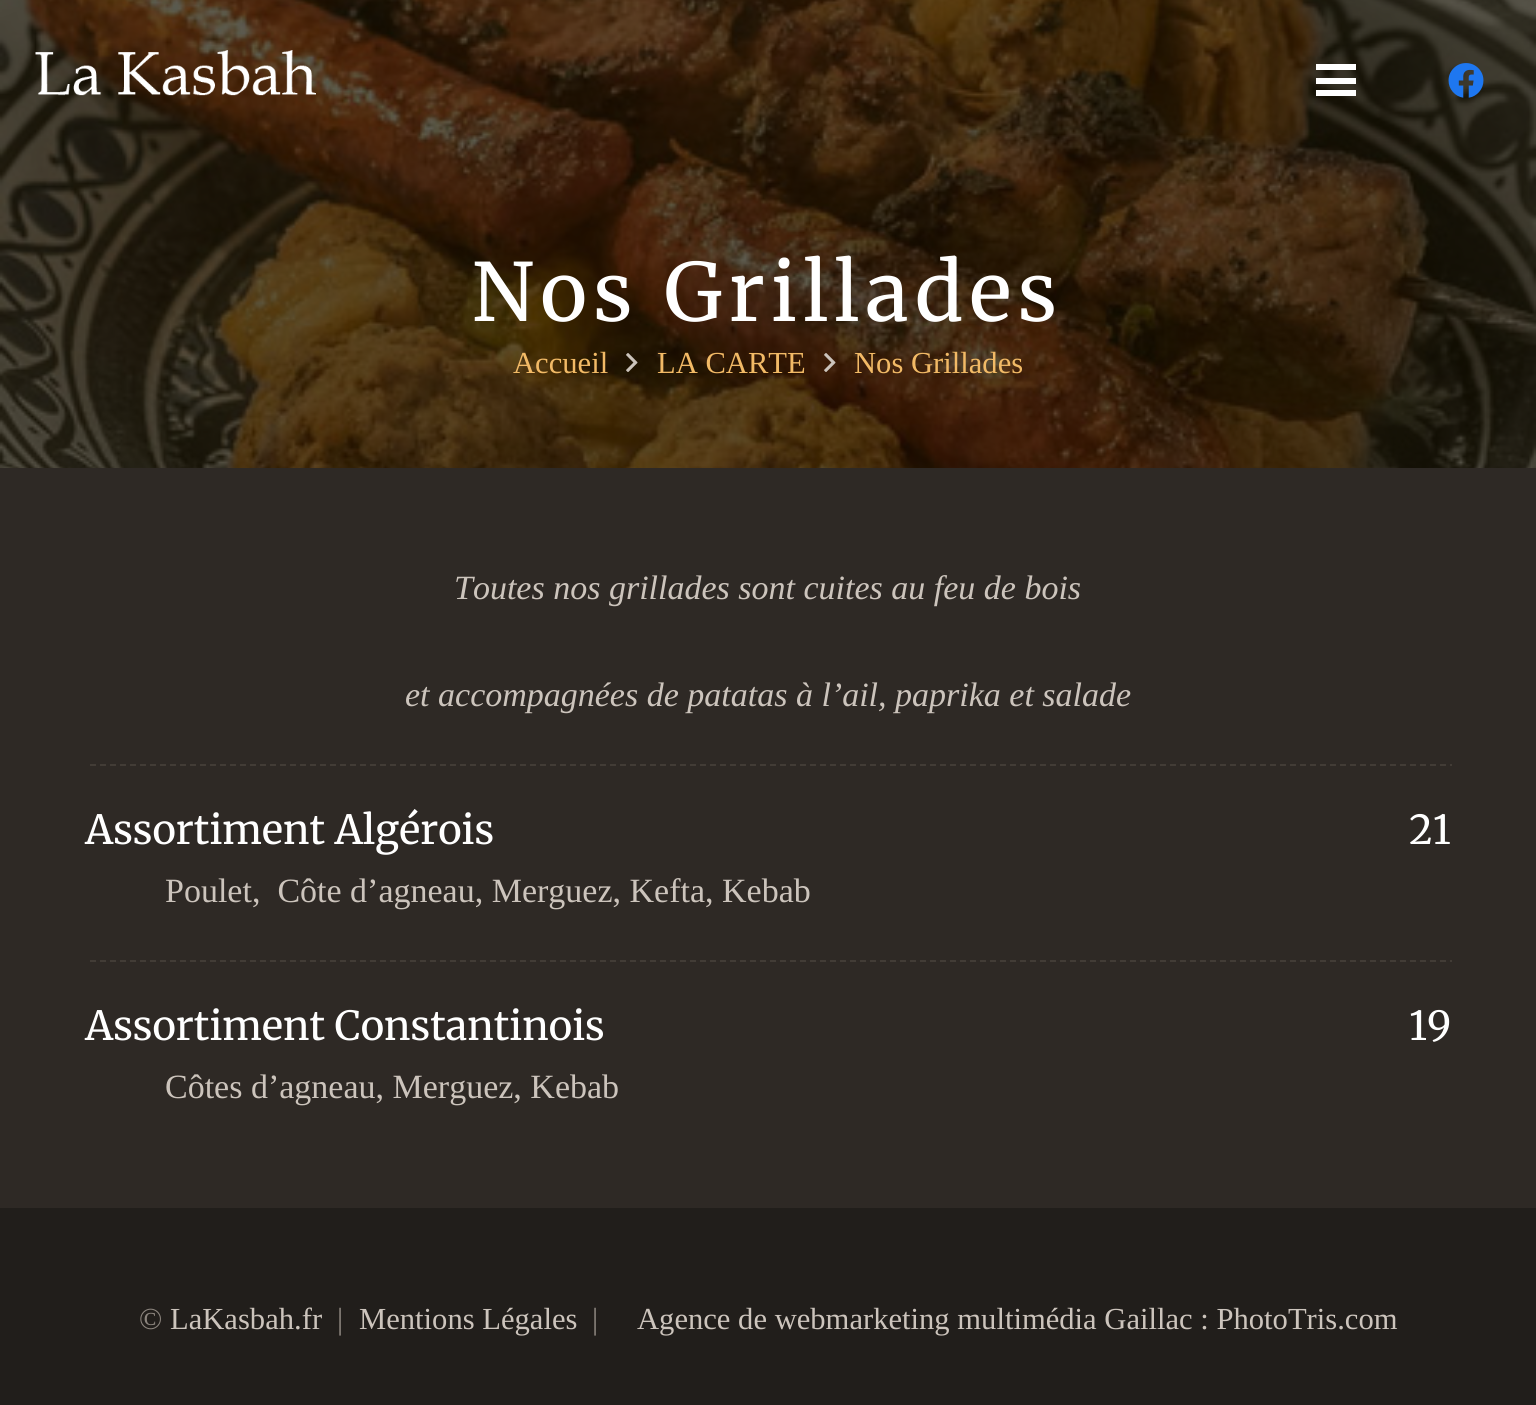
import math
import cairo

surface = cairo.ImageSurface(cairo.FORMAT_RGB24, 1536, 1405)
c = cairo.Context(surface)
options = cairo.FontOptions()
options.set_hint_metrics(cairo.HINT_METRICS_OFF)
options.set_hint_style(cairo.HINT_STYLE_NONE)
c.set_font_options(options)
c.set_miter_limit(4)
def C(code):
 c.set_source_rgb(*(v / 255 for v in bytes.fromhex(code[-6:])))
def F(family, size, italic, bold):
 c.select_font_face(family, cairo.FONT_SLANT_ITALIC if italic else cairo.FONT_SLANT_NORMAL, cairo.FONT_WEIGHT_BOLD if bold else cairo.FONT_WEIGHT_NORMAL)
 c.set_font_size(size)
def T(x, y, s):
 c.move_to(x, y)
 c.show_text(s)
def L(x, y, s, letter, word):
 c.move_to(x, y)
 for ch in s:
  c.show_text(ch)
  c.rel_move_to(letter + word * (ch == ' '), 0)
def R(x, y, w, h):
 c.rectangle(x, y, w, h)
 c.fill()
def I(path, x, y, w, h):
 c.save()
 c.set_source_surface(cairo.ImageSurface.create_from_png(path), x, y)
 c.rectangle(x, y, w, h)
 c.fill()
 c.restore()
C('2e2925')
c.paint()
I('3.png',0,0,1536,468)
I('1.png',35,50,281,46)
C('ffffff')
R(1316,78,40,6)
R(1316,64,40,6)
R(1316,90,40,6)
I('2.png',1448,63,36,35)
F('Merriweather',80,0,0)
L(472,321,'Nos Grillades',6.4,0)
F('Liberation Serif',30.6,0,0)
C('f2ba66')
T(513,373,'Accueil')
I('4.png',626,353,12,19)
T(657,373,'LA CARTE')
I('5.png',824,353,12,19)
T(854,373,'Nos Grillades')
F('Liberation Serif',34,1,0)
C('ccc4bc')
T(454,599,'Toutes nos grillades sont cuites au feu de bois')
T(405,706,'et accompagnées de patatas à l’ail, paprika et salade')
c.save()
c.rectangle(86,724,1366,82)
c.clip()
c.new_path()
c.move_to(0,765)
c.line_to(1536,765)
C('423c36')
c.set_dash([6,4])
c.stroke()
c.restore()
F('Merriweather',40,0,0)
C('ffffff')
T(85,844,'Assortiment Algérois')
F('Liberation Serif',34,0,0)
C('ccc4bc')
T(165,902,'Poulet,  Côte d’agneau, Merguez, Kefta, Kebab')
F('Merriweather',40,0,0)
C('ffffff')
T(1409,844,'21')
c.save()
c.rectangle(86,920,1366,82)
c.clip()
c.new_path()
c.move_to(0,961)
c.line_to(1536,961)
C('423c36')
c.set_dash([6,4])
c.stroke()
c.restore()
T(85,1040,'Assortiment Constantinois')
F('Liberation Serif',34,0,0)
C('ccc4bc')
T(165,1098,'Côtes d’agneau, Merguez, Kebab')
F('Merriweather',40,0,0)
C('ffffff')
T(1409,1040,'19')
C('211e1b')
R(0,1208,1536,197)
F('Liberation Serif',30.6,0,0)
C('8c857e')
T(139,1329,'©')
C('ccc4bc')
T(170,1329,'LaKasbah.fr')
C('8c857e')
T(337,1329,'|')
C('ccc4bc')
T(359,1329,'Mentions Légales')
C('8c857e')
T(592,1329,'|')
C('ccc4bc')
T(637,1329,'Agence de webmarketing multimédia Gaillac : PhotoTris.com')
surface.write_to_png('o.png')
